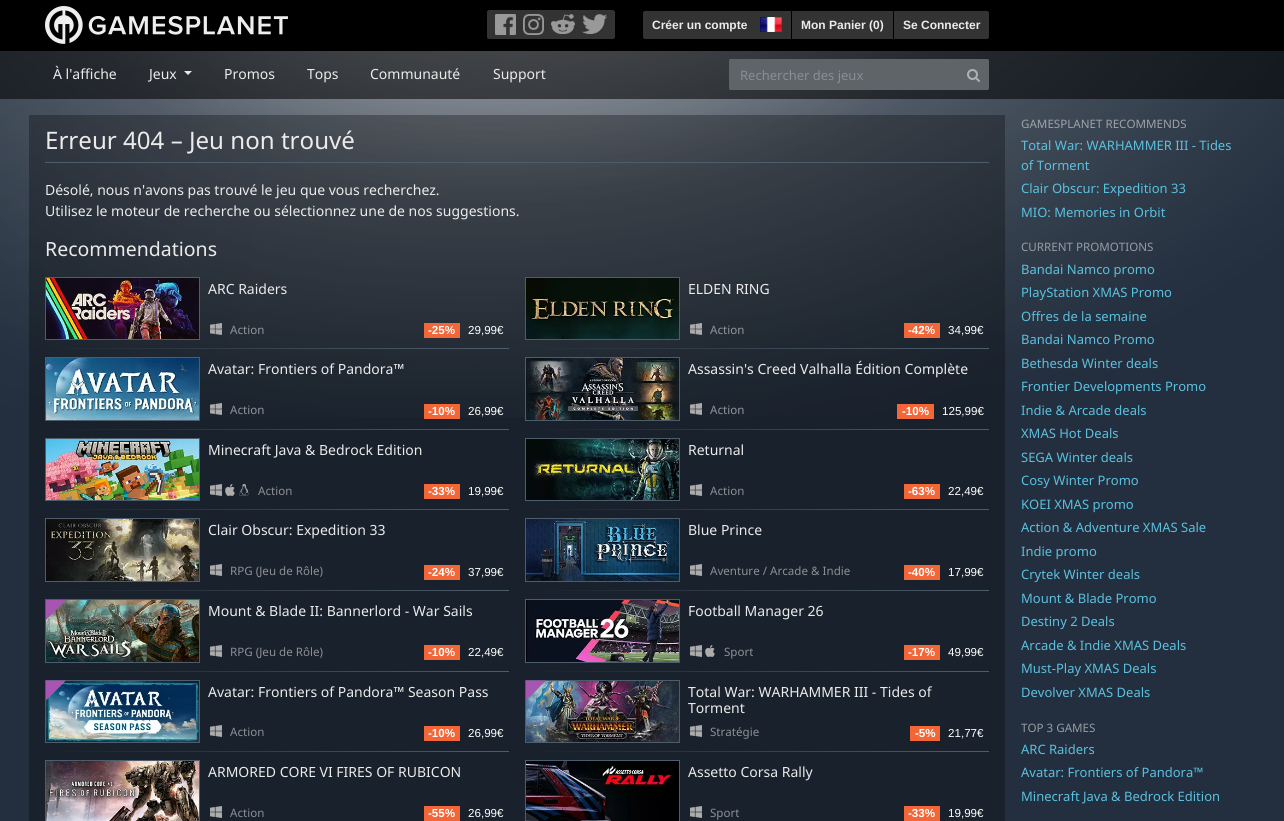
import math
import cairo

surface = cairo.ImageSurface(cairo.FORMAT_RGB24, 1284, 821)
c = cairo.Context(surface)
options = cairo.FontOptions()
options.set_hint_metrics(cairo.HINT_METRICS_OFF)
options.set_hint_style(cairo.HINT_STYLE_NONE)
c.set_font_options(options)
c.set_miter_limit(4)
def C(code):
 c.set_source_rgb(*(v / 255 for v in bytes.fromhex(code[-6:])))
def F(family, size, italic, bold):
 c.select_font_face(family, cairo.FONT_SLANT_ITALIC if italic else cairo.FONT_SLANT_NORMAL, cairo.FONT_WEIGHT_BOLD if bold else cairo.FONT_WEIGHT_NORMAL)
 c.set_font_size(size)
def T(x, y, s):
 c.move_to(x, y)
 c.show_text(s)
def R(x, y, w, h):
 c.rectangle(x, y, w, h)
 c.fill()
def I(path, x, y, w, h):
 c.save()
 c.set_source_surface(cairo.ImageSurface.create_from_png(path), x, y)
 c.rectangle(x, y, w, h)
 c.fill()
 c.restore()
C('232f3e')
c.paint()
I('1.png',0,51,1284,366)
C('000000')
R(0,0,1284,51)
I('2.png',45,6,243,38)
C('333333')
c.new_path()
c.move_to(489,10)
c.line_to(520,10)
c.line_to(520,39)
c.line_to(489,39)
c.curve_to(488,39,487,38,487,37)
c.line_to(487,12)
c.curve_to(487,11,488,10,489,10)
c.close_path()
c.fill()
I('3.png',495,14,21,21)
R(520,10,58,29)
I('4.png',523,14,21,21)
c.new_path()
c.move_to(578,10)
c.line_to(613,10)
c.curve_to(614,10,615,11,615,12)
c.line_to(615,37)
c.curve_to(615,38,614,39,613,39)
c.line_to(578,39)
c.close_path()
c.fill()
I('5.png',582,14,25,20)
I('6.png',551,14,24,20)
c.new_path()
c.move_to(645,11)
c.line_to(756,11)
c.line_to(756,39)
c.line_to(645,39)
c.curve_to(644,39,643,38,643,37)
c.line_to(643,13)
c.curve_to(643,12,644,11,645,11)
c.close_path()
c.fill()
F('Liberation Sans',12,0,1)
C('ebebeb')
T(652,29,'Créer un compte')
C('333333')
R(756,11,35,28)
I('7.png',760,17,22,15)
R(792,11,101,28)
C('ebebeb')
T(801,29,'Mon Panier (0)')
C('333333')
c.new_path()
c.move_to(894,11)
c.line_to(987,11)
c.curve_to(988,11,989,12,989,13)
c.line_to(989,37)
c.curve_to(989,38,988,39,987,39)
c.line_to(894,39)
c.close_path()
c.fill()
C('ebebeb')
T(903,29,'Se Connecter')
c.set_source_rgba(0,0,0,0.55)
R(0,51,1284,48)
F('Noto Sans',14,0,0)
C('ebebeb')
T(53,79,'À l\'affiche')
T(149,79,'Jeux')
c.new_path()
c.move_to(184,71)
c.line_to(192,71)
c.line_to(188,75)
c.close_path()
c.fill()
T(224,79,'Promos')
T(307,79,'Tops')
T(370,79,'Communauté')
T(493,79,'Support')
C('5f6468')
c.new_path()
c.move_to(731,59.5)
c.line_to(958.5,59.5)
c.line_to(958.5,89.5)
c.line_to(731,89.5)
c.curve_to(730,89.5,729.5,89,729.5,88)
c.line_to(729.5,61)
c.curve_to(729.5,60,730,59.5,731,59.5)
c.close_path()
c.fill_preserve()
c.set_line_width(1)
c.stroke()
F('Noto Sans',13,0,0)
C('868e96')
T(740,80,'Rechercher des jeux')
C('5f6468')
c.new_path()
c.move_to(958.5,59.5)
c.line_to(987,59.5)
c.curve_to(988,59.5,988.5,60,988.5,61)
c.line_to(988.5,88)
c.curve_to(988.5,89,988,89.5,987,89.5)
c.line_to(958.5,89.5)
c.close_path()
c.fill_preserve()
c.stroke()
I('8.png',967,69,13,13)
c.set_source_rgba(0,0,0,0.3)
R(29,115,976,706)
C('4e5d6c')
R(45,162,944,1)
F('Noto Sans',24.1,0,0)
C('ebebeb')
T(45,149,'Erreur 404 – Jeu non trouvé')
F('Noto Sans',14,0,0)
T(45,195,'Désolé, nous n\'avons pas trouvé le jeu que vous recherchez.')
T(45,216,'Utilisez le moteur de recherche ou sélectionnez une de nos suggestions.')
F('Noto Sans',19.5,0,0)
T(45,256,'Recommendations')
c.rectangle(45.5,277.5,154,62)
C('4e5d6c')
c.stroke()
I('9.png',46,278,153,61)
F('Noto Sans',14,0,0)
C('ebebeb')
T(208,294,'ARC Raiders')
I('10.png',210,323,12,12)
F('Noto Sans',11.6,0,0)
C('92969a')
T(230,334,'Action')
C('f26638')
R(424,323,36,15)
F('Liberation Sans',11.6,0,1)
C('ffffff')
T(428,334,'-25%')
F('Liberation Sans',11.6,0,0)
T(468,334,'29,99€')
gradient = cairo.LinearGradient(509,349,45,349)
gradient.add_color_stop_rgba(0,0.306,0.365,0.424,1)
gradient.add_color_stop_rgba(1,0.306,0.365,0.424,0)
c.set_source(gradient)
R(64,348,445,1)
c.rectangle(45.5,357.5,154,63)
C('4e5d6c')
c.stroke()
I('11.png',46,358,153,62)
F('Noto Sans',14,0,0)
C('ebebeb')
T(208,374,'Avatar: Frontiers of Pandora™')
I('12.png',210,403,12,12)
F('Noto Sans',11.6,0,0)
C('92969a')
T(230,414,'Action')
C('f26638')
R(424,404,36,15)
F('Liberation Sans',11.6,0,1)
C('ffffff')
T(428,415,'-10%')
F('Liberation Sans',11.6,0,0)
T(468,415,'26,99€')
gradient = cairo.LinearGradient(509,430,45,430)
gradient.add_color_stop_rgba(0,0.306,0.365,0.424,1)
gradient.add_color_stop_rgba(1,0.098,0.129,0.169,1)
c.set_source(gradient)
R(64,429,445,1)
c.rectangle(45.5,438.5,154,62)
C('4e5d6c')
c.stroke()
I('13.png',46,439,153,61)
F('Noto Sans',14,0,0)
C('ebebeb')
T(208,455,'Minecraft Java & Bedrock Edition')
I('14.png',210,484,12,12)
I('15.png',225,484,10,12)
I('16.png',239,484,10,12)
F('Noto Sans',11.6,0,0)
C('8c9095')
T(258,495,'Action')
C('f26638')
R(424,484,36,15)
F('Liberation Sans',11.6,0,1)
C('ffffff')
T(428,495,'-33%')
F('Liberation Sans',11.6,0,0)
T(468,495,'19,99€')
gradient = cairo.LinearGradient(509,510,45,510)
gradient.add_color_stop_rgba(0,0.306,0.365,0.424,1)
gradient.add_color_stop_rgba(1,0.098,0.129,0.169,1)
c.set_source(gradient)
R(64,509,445,1)
c.rectangle(45.5,518.5,154,63)
C('4e5d6c')
c.stroke()
I('17.png',46,519,153,62)
F('Noto Sans',14,0,0)
C('ebebeb')
T(208,535,'Clair Obscur: Expedition 33')
I('14.png',210,564,12,12)
F('Noto Sans',11.6,0,0)
C('8c9095')
T(230,575,'RPG (Jeu de Rôle)')
C('f26638')
R(424,565,36,15)
F('Liberation Sans',11.6,0,1)
C('ffffff')
T(428,576,'-24%')
F('Liberation Sans',11.6,0,0)
T(468,576,'37,99€')
gradient = cairo.LinearGradient(509,591,45,591)
gradient.add_color_stop_rgba(0,0.306,0.365,0.424,1)
gradient.add_color_stop_rgba(1,0.098,0.129,0.169,1)
c.set_source(gradient)
R(64,590,445,1)
c.rectangle(45.5,599.5,154,63)
C('4e5d6c')
c.stroke()
I('18.png',46,600,153,62)
C('a655b2')
c.new_path()
c.move_to(66,600)
c.line_to(46,620)
c.line_to(46,600)
c.close_path()
c.fill()
F('Noto Sans',14,0,0)
C('ebebeb')
T(208,616,'Mount & Blade II: Bannerlord - War Sails')
I('14.png',210,645,12,12)
F('Noto Sans',11.6,0,0)
C('8c9095')
T(230,656,'RPG (Jeu de Rôle)')
C('f26638')
R(424,645,36,15)
F('Liberation Sans',11.6,0,1)
C('ffffff')
T(428,656,'-10%')
F('Liberation Sans',11.6,0,0)
T(468,656,'22,49€')
gradient = cairo.LinearGradient(509,672,45,672)
gradient.add_color_stop_rgba(0,0.306,0.365,0.424,1)
gradient.add_color_stop_rgba(1,0.098,0.129,0.169,1)
c.set_source(gradient)
R(64,671,445,1)
c.rectangle(45.5,680.5,154,62)
C('4e5d6c')
c.stroke()
I('19.png',46,681,153,61)
C('a655b2')
c.new_path()
c.move_to(66,680.5)
c.line_to(46,700.5)
c.line_to(46,680.5)
c.close_path()
c.fill()
F('Noto Sans',14,0,0)
C('ebebeb')
T(208,697,'Avatar: Frontiers of Pandora™ Season Pass')
I('14.png',210,725,12,12)
F('Noto Sans',11.6,0,0)
C('8c9095')
T(230,736,'Action')
C('f26638')
R(424,726,36,15)
F('Liberation Sans',11.6,0,1)
C('ffffff')
T(428,737,'-10%')
F('Liberation Sans',11.6,0,0)
T(468,737,'26,99€')
gradient = cairo.LinearGradient(509,752,45,752)
gradient.add_color_stop_rgba(0,0.306,0.365,0.424,1)
gradient.add_color_stop_rgba(1,0.098,0.129,0.169,1)
c.set_source(gradient)
R(64,751,445,1)
c.rectangle(45.5,760.5,154,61)
C('4e5d6c')
c.stroke()
I('20.png',46,761,153,60)
F('Noto Sans',14,0,0)
C('ebebeb')
T(208,777,'ARMORED CORE VI FIRES OF RUBICON')
I('14.png',210,806,12,12)
F('Noto Sans',11.6,0,0)
C('8c9095')
T(230,817,'Action')
C('f26638')
R(424,806,36,15)
F('Liberation Sans',11.6,0,1)
C('ffffff')
T(428,817,'-55%')
F('Liberation Sans',11.6,0,0)
T(468,817,'26,99€')
c.rectangle(525.5,277.5,154,62)
C('4e5d6c')
c.stroke()
I('21.png',526,278,153,61)
F('Noto Sans',14,0,0)
C('ebebeb')
T(688,294,'ELDEN RING')
I('22.png',690,323,12,12)
F('Noto Sans',11.6,0,0)
C('92969a')
T(710,334,'Action')
C('f26638')
R(904,323,36,15)
F('Liberation Sans',11.6,0,1)
C('ffffff')
T(908,334,'-42%')
F('Liberation Sans',11.6,0,0)
T(948,334,'34,99€')
gradient = cairo.LinearGradient(989,349,525,349)
gradient.add_color_stop_rgba(0,0.306,0.365,0.424,1)
gradient.add_color_stop_rgba(1,0.306,0.365,0.424,0)
c.set_source(gradient)
R(544,348,445,1)
c.rectangle(525.5,357.5,154,63)
C('4e5d6c')
c.stroke()
I('23.png',526,358,153,62)
F('Noto Sans',14,0,0)
C('ebebeb')
T(688,374,'Assassin\'s Creed Valhalla Édition Complète')
I('24.png',690,403,12,12)
F('Noto Sans',11.6,0,0)
C('92969a')
T(710,414,'Action')
C('f26638')
R(897,404,37,15)
F('Liberation Sans',11.6,0,1)
C('ffffff')
T(902,415,'-10%')
F('Liberation Sans',11.6,0,0)
T(942,415,'125,99€')
gradient = cairo.LinearGradient(989,430,525,430)
gradient.add_color_stop_rgba(0,0.306,0.365,0.424,1)
gradient.add_color_stop_rgba(1,0.098,0.129,0.169,1)
c.set_source(gradient)
R(544,429,445,1)
c.rectangle(525.5,438.5,154,62)
C('4e5d6c')
c.stroke()
I('25.png',526,439,153,61)
F('Noto Sans',14,0,0)
C('ebebeb')
T(688,455,'Returnal')
I('14.png',690,484,12,12)
F('Noto Sans',11.6,0,0)
C('8c9095')
T(710,495,'Action')
C('f26638')
R(904,484,36,15)
F('Liberation Sans',11.6,0,1)
C('ffffff')
T(908,495,'-63%')
F('Liberation Sans',11.6,0,0)
T(948,495,'22,49€')
gradient = cairo.LinearGradient(989,510,525,510)
gradient.add_color_stop_rgba(0,0.306,0.365,0.424,1)
gradient.add_color_stop_rgba(1,0.098,0.129,0.169,1)
c.set_source(gradient)
R(544,509,445,1)
c.rectangle(525.5,518.5,154,63)
C('4e5d6c')
c.stroke()
I('26.png',526,519,153,62)
F('Noto Sans',14,0,0)
C('ebebeb')
T(688,535,'Blue Prince')
I('14.png',690,564,12,12)
F('Noto Sans',11.6,0,0)
C('8c9095')
T(710,575,'Aventure / Arcade & Indie')
C('f26638')
R(904,565,36,15)
F('Liberation Sans',11.6,0,1)
C('ffffff')
T(908,576,'-40%')
F('Liberation Sans',11.6,0,0)
T(948,576,'17,99€')
gradient = cairo.LinearGradient(989,591,525,591)
gradient.add_color_stop_rgba(0,0.306,0.365,0.424,1)
gradient.add_color_stop_rgba(1,0.098,0.129,0.169,1)
c.set_source(gradient)
R(544,590,445,1)
c.rectangle(525.5,599.5,154,63)
C('4e5d6c')
c.stroke()
I('27.png',526,600,153,62)
F('Noto Sans',14,0,0)
C('ebebeb')
T(688,616,'Football Manager 26')
I('14.png',690,645,12,12)
I('15.png',705,645,10,12)
F('Noto Sans',11.6,0,0)
C('8c9095')
T(724,656,'Sport')
C('f26638')
R(904,645,36,15)
F('Liberation Sans',11.6,0,1)
C('ffffff')
T(908,656,'-17%')
F('Liberation Sans',11.6,0,0)
T(948,656,'49,99€')
gradient = cairo.LinearGradient(989,672,525,672)
gradient.add_color_stop_rgba(0,0.306,0.365,0.424,1)
gradient.add_color_stop_rgba(1,0.098,0.129,0.169,1)
c.set_source(gradient)
R(544,671,445,1)
c.rectangle(525.5,680.5,154,62)
C('4e5d6c')
c.stroke()
I('28.png',526,681,153,61)
C('a655b2')
c.new_path()
c.move_to(546,680.5)
c.line_to(526,700.5)
c.line_to(526,680.5)
c.close_path()
c.fill()
F('Noto Sans',14,0,0)
C('ebebeb')
T(688,697,'Total War: WARHAMMER III - Tides of')
T(688,713,'Torment')
I('14.png',690,725,12,12)
F('Noto Sans',11.6,0,0)
C('8c9095')
T(710,736,'Stratégie')
C('f26638')
R(910,726,30,15)
F('Liberation Sans',11.6,0,1)
C('ffffff')
T(915,737,'-5%')
F('Liberation Sans',11.6,0,0)
T(948,737,'21,77€')
gradient = cairo.LinearGradient(989,752,525,752)
gradient.add_color_stop_rgba(0,0.306,0.365,0.424,1)
gradient.add_color_stop_rgba(1,0.098,0.129,0.169,1)
c.set_source(gradient)
R(544,751,445,1)
c.rectangle(525.5,760.5,154,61)
C('4e5d6c')
c.stroke()
I('29.png',526,761,153,60)
F('Noto Sans',14,0,0)
C('ebebeb')
T(688,777,'Assetto Corsa Rally')
I('14.png',690,806,12,12)
F('Noto Sans',11.6,0,0)
C('8c9095')
T(710,817,'Sport')
C('f26638')
R(904,806,36,15)
F('Liberation Sans',11.6,0,1)
C('ffffff')
T(908,817,'-33%')
F('Liberation Sans',11.6,0,0)
T(948,817,'19,99€')
F('Noto Sans',11.6,0,0)
C('9ca2a8')
T(1021,128,'GAMESPLANET RECOMMENDS')
F('Noto Sans',13,0,0)
C('5bc0de')
T(1021,150,'Total War: WARHAMMER III - Tides')
T(1021,170,'of Torment')
T(1021,193,'Clair Obscur: Expedition 33')
T(1021,217,'MIO: Memories in Orbit')
F('Noto Sans',11.6,0,0)
C('969ca3')
T(1021,251,'CURRENT PROMOTIONS')
F('Noto Sans',13,0,0)
C('5bc0de')
T(1021,274,'Bandai Namco promo')
T(1021,297,'PlayStation XMAS Promo')
T(1021,321,'Offres de la semaine')
T(1021,344,'Bandai Namco Promo')
T(1021,368,'Bethesda Winter deals')
T(1021,391,'Frontier Developments Promo')
T(1021,415,'Indie & Arcade deals')
T(1021,438,'XMAS Hot Deals')
T(1021,462,'SEGA Winter deals')
T(1021,485,'Cosy Winter Promo')
T(1021,509,'KOEI XMAS promo')
T(1021,532,'Action & Adventure XMAS Sale')
T(1021,556,'Indie promo')
T(1021,579,'Crytek Winter deals')
T(1021,603,'Mount & Blade Promo')
T(1021,626,'Destiny 2 Deals')
T(1021,650,'Arcade & Indie XMAS Deals')
T(1021,673,'Must-Play XMAS Deals')
T(1021,697,'Devolver XMAS Deals')
F('Noto Sans',11.6,0,0)
C('969ca3')
T(1021,732,'TOP 3 GAMES')
F('Noto Sans',13,0,0)
C('5bc0de')
T(1021,754,'ARC Raiders')
T(1021,777,'Avatar: Frontiers of Pandora™')
T(1021,801,'Minecraft Java & Bedrock Edition')
surface.write_to_png('o.png')
